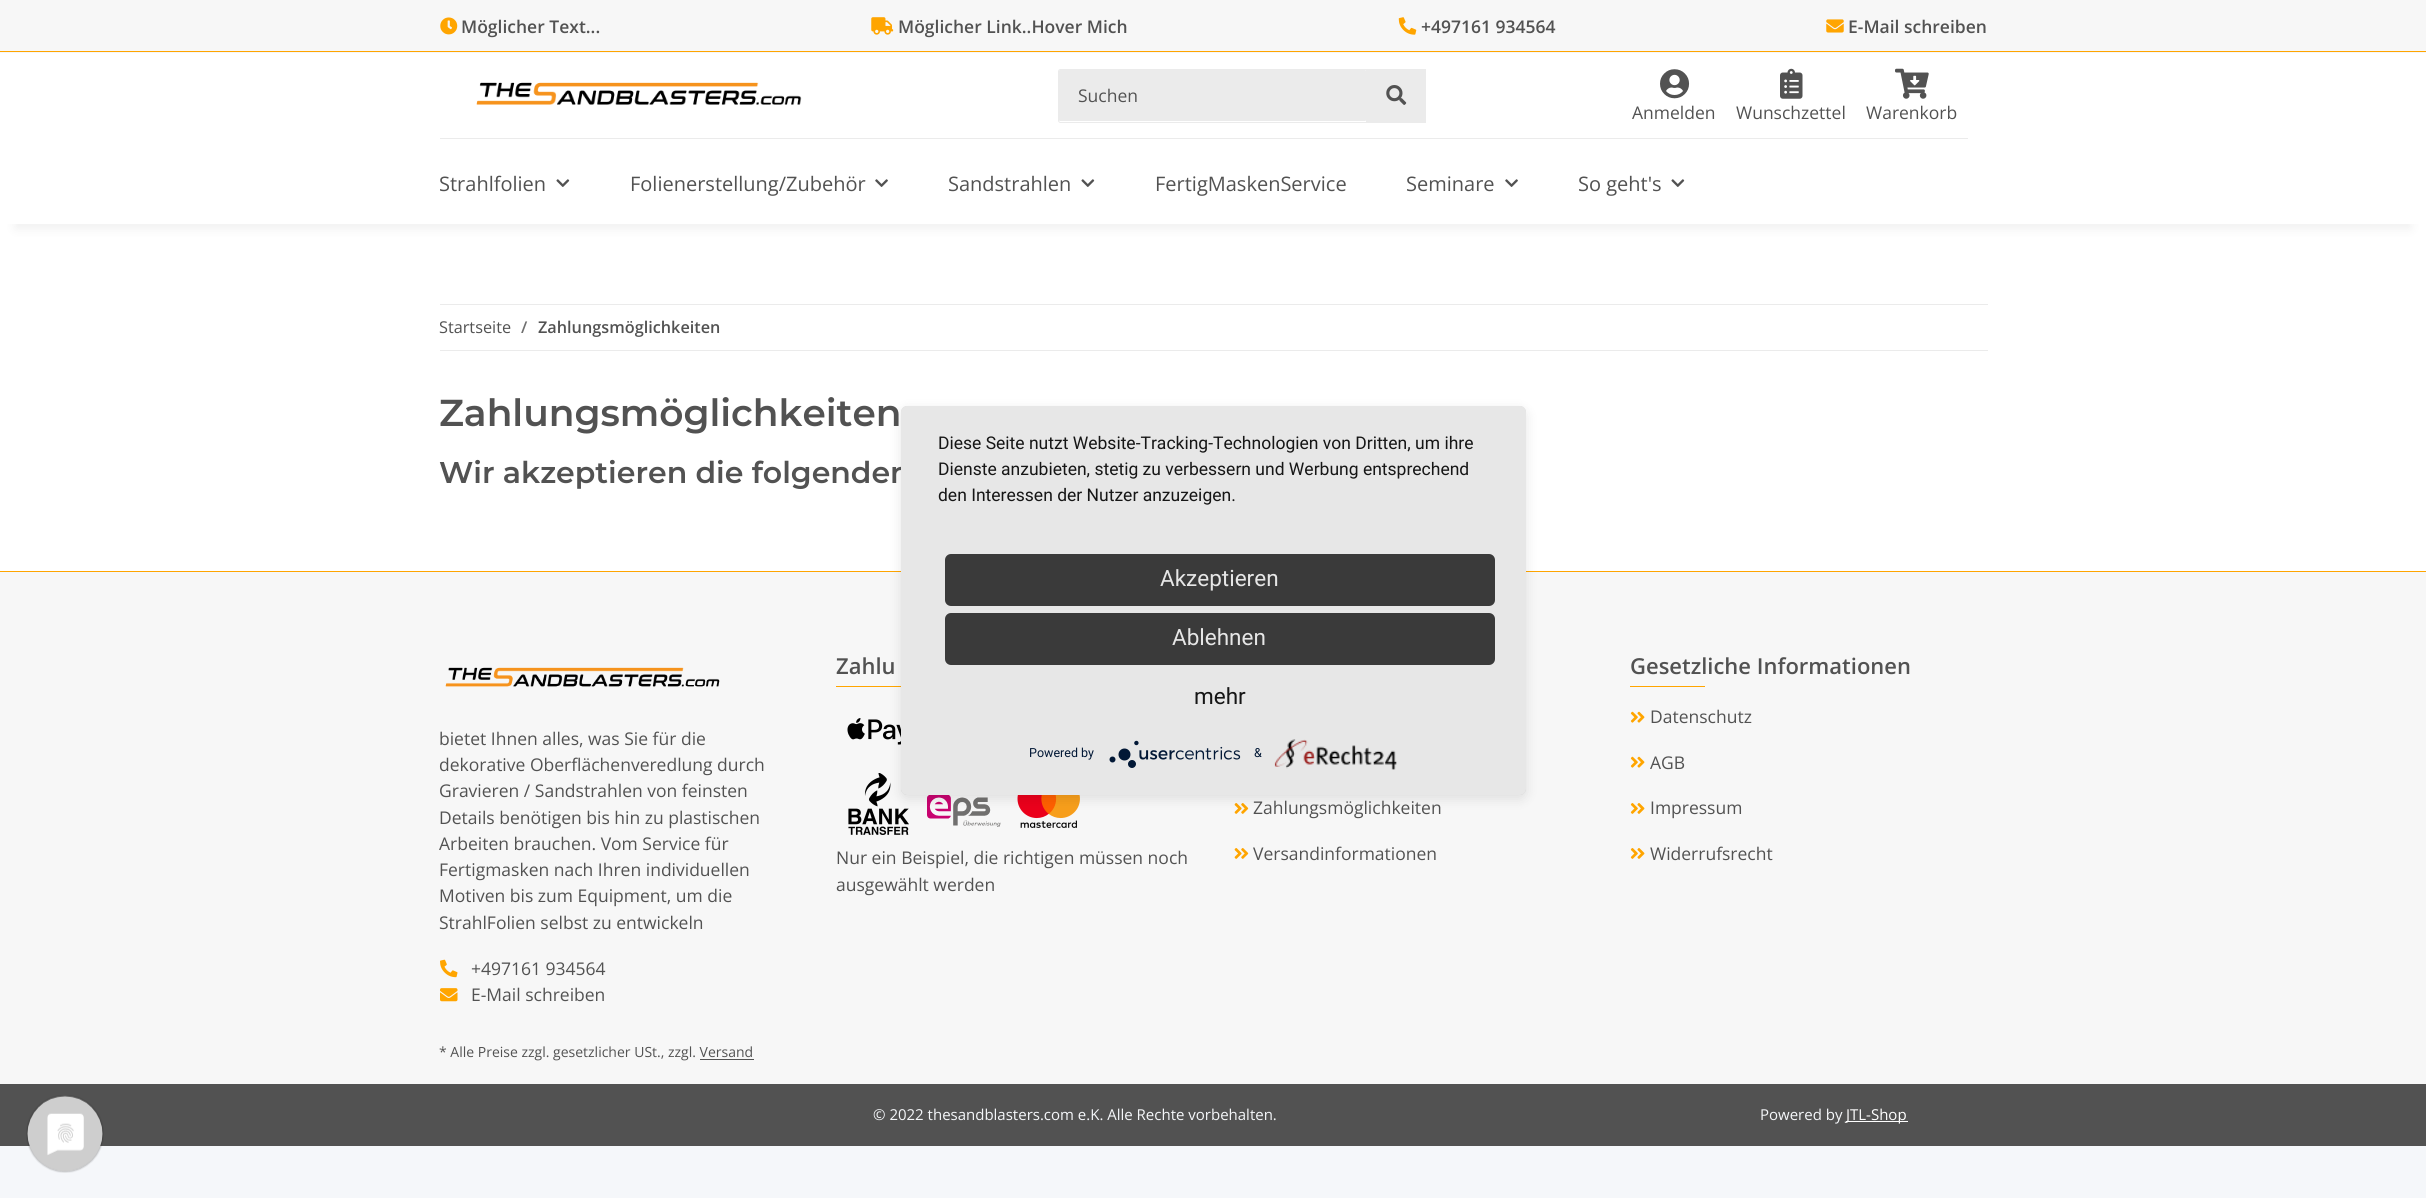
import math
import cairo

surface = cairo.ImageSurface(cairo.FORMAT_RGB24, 2426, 1198)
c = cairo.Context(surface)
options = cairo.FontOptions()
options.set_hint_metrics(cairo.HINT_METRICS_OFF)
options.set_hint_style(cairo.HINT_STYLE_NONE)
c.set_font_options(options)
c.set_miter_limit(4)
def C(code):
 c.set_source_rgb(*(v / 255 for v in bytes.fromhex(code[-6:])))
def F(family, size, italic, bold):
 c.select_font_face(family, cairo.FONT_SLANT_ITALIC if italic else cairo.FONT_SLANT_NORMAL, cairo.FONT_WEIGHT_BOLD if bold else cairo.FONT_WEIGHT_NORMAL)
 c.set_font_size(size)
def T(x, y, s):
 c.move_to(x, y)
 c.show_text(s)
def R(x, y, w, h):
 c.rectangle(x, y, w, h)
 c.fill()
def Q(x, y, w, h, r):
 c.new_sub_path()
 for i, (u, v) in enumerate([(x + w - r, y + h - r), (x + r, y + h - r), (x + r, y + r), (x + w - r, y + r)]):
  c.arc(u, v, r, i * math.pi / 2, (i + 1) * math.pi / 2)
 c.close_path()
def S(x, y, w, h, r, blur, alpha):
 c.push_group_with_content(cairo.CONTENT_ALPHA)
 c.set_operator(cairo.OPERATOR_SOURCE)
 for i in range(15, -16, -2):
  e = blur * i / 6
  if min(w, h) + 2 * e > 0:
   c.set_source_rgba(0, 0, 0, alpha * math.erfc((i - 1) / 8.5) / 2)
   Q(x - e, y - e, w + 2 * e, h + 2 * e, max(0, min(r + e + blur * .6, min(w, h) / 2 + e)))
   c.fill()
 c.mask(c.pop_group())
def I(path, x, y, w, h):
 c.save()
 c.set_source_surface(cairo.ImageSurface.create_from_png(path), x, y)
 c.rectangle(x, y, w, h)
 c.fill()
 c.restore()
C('f5f7fa')
c.paint()
C('f7f7f7')
R(0,0,2426,53)
C('ffa500')
R(0,51,2426,1)
I('1.png',440,17,18,18)
F('Open Sans SemiBold',17.5,0,0)
C('525252')
T(461,33,'Möglicher Text...')
I('2.png',871,17,23,18)
T(898,33,'Möglicher Link..Hover Mich')
I('3.png',1398,17,19,18)
T(1421,33,'+497161 934564')
I('4.png',1826,19,18,14)
T(1848,33,'E-Mail schreiben')
C('ffffff')
R(0,224,2426,347)
C('000000')
S(15,88,2396,141,0,5.5,.06)
C('ffffff')
R(0,53,2426,171)
I('5.png',476,82,326,23)
C('ebebeb')
Q(1059,70,307,51,1)
c.fill()
Q(1058.5,69.5,309,53,2)
c.set_line_width(1)
c.stroke()
F('Open Sans',17.5,0,0)
C('525252')
T(1078,102,'Suchen')
C('ebebeb')
R(1366,69,60,54)
I('6.png',1386,85,21,20)
I('7.png',1660,69,30,30)
C('525252')
T(1632,119,'Anmelden')
I('8.png',1780,68,23,31)
T(1736,119,'Wunschzettel')
I('9.png',1895,68,34,31)
T(1866,119,'Warenkorb')
C('ebebeb')
R(440,138,1528,1)
F('Open Sans',20,0,0)
C('525252')
T(439,191,'Strahlfolien')
I('10.png',556,179,14,8)
T(630,191,'Folienerstellung/Zubehör')
I('11.png',875,179,13,8)
T(948,191,'Sandstrahlen')
I('10.png',1081,179,14,8)
T(1155,191,'FertigMaskenService')
T(1406,191,'Seminare')
I('11.png',1505,179,13,8)
T(1578,191,'So geht\'s')
I('10.png',1671,179,14,8)
C('ebebeb')
R(440,304,1548,1)
R(440,350,1548,1)
F('Open Sans',16.25,0,0)
C('525252')
T(439,333,'Startseite')
F('Open Sans SemiBold',16.25,0,0)
C('707070')
T(521,333,'/')
C('525252')
T(538,333,'Zahlungsmöglichkeiten')
F('Montserrat SemiBold',37.5,0,0)
T(439,426,'Zahlungsmöglichkeiten')
F('Montserrat SemiBold',30,0,0)
T(439,483,'Wir akzeptieren die folgenden')
C('f7f7f7')
R(0,573,2426,511)
C('ffa500')
R(0,571,2426,1)
R(836,686,65,1)
I('18.png',847,718,54,27)
I('19.png',848,773,61,62)
I('20.png',927,795,74,32)
I('21.png',1017,795,63,33)
I('22.png',1234,803,15,11)
C('000000')
S(901,410,625,389,6,6,.1)
I('22.png',1234,848,15,11)
c.save()
Q(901,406,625,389,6)
c.clip()
S(901,414,625,389,0,22.5,.3)
c.restore()
C('e7e7e7')
Q(901,406,625,389,6)
c.fill()
F('Roboto',17.5,0,0)
C('161616')
T(938,449,'Diese Seite nutzt Website-Tracking-Technologien von Dritten, um ihre')
T(938,475,'Dienste anzubieten, stetig zu verbessern und Werbung entsprechend')
T(938,501,'den Interessen der Nutzer anzuzeigen.')
C('3a3a3a')
Q(945,554,550,52,6)
c.fill()
F('Roboto',22.5,0,0)
C('e6e6e6')
T(1160,586,'Akzeptieren')
C('3a3a3a')
Q(945,613,550,52,6)
c.fill()
C('e6e6e6')
T(1172,645,'Ablehnen')
C('161616')
T(1194,704,'mehr')
F('Roboto',12.5,0,0)
C('021836')
T(1029,757,'Powered by')
I('12.png',1109,740,132,28)
T(1254,757,'&')
I('13.png',1274,739,123,31)
C('525252')
R(0,1084,2426,62)
I('14.png',26,1095,78,78)
I('15.png',445,667,275,20)
F('Open Sans',17.5,0,0)
T(439,745,'bietet Ihnen alles, was Sie für die')
T(439,771,'dekorative Oberflächenveredlung durch')
T(439,797,'Gravieren / Sandstrahlen von feinsten')
T(439,824,'Details benötigen bis hin zu plastischen')
T(439,850,'Arbeiten brauchen. Vom Service für')
T(439,876,'Fertigmasken nach Ihren individuellen')
T(439,902,'Motiven bis zum Equipment, um die')
T(439,929,'StrahlFolien selbst zu entwickeln')
I('16.png',440,959,18,19)
T(471,975,'+497161 934564')
I('17.png',440,988,18,14)
T(471,1001,'E-Mail schreiben')
F('Open Sans SemiBold',22,0,0)
T(836,674,'Zahlu')
F('Open Sans',17.5,0,0)
T(836,864,'Nur ein Beispiel, die richtigen müssen noch')
T(836,891,'ausgewählt werden')
T(1253,814,'Zahlungsmöglichkeiten')
T(1253,860,'Versandinformationen')
F('Open Sans SemiBold',22,0,0)
T(1630,674,'Gesetzliche Informationen')
C('ffa500')
R(1630,686,75,1)
I('23.png',1630,711,15,12)
F('Open Sans',17.5,0,0)
C('525252')
T(1650,723,'Datenschutz')
I('23.png',1630,756,15,12)
T(1650,769,'AGB')
I('24.png',1630,803,15,11)
T(1650,814,'Impressum')
I('24.png',1630,848,15,11)
T(1650,860,'Widerrufsrecht')
F('Open Sans',14,0,0)
T(439,1057,'* Alle Preise zzgl. gesetzlicher USt., zzgl. Versand')
R(700,1059,54,1)
F('Open Sans',15,0,0)
C('f5f7fa')
T(873,1120,'© 2022 thesandblasters.com e.K. Alle Rechte vorbehalten.')
T(1760,1120,'Powered by')
C('ffffff')
R(1846,1121,62,1)
T(1846,1120,'JTL-Shop')
surface.write_to_png('o.png')
